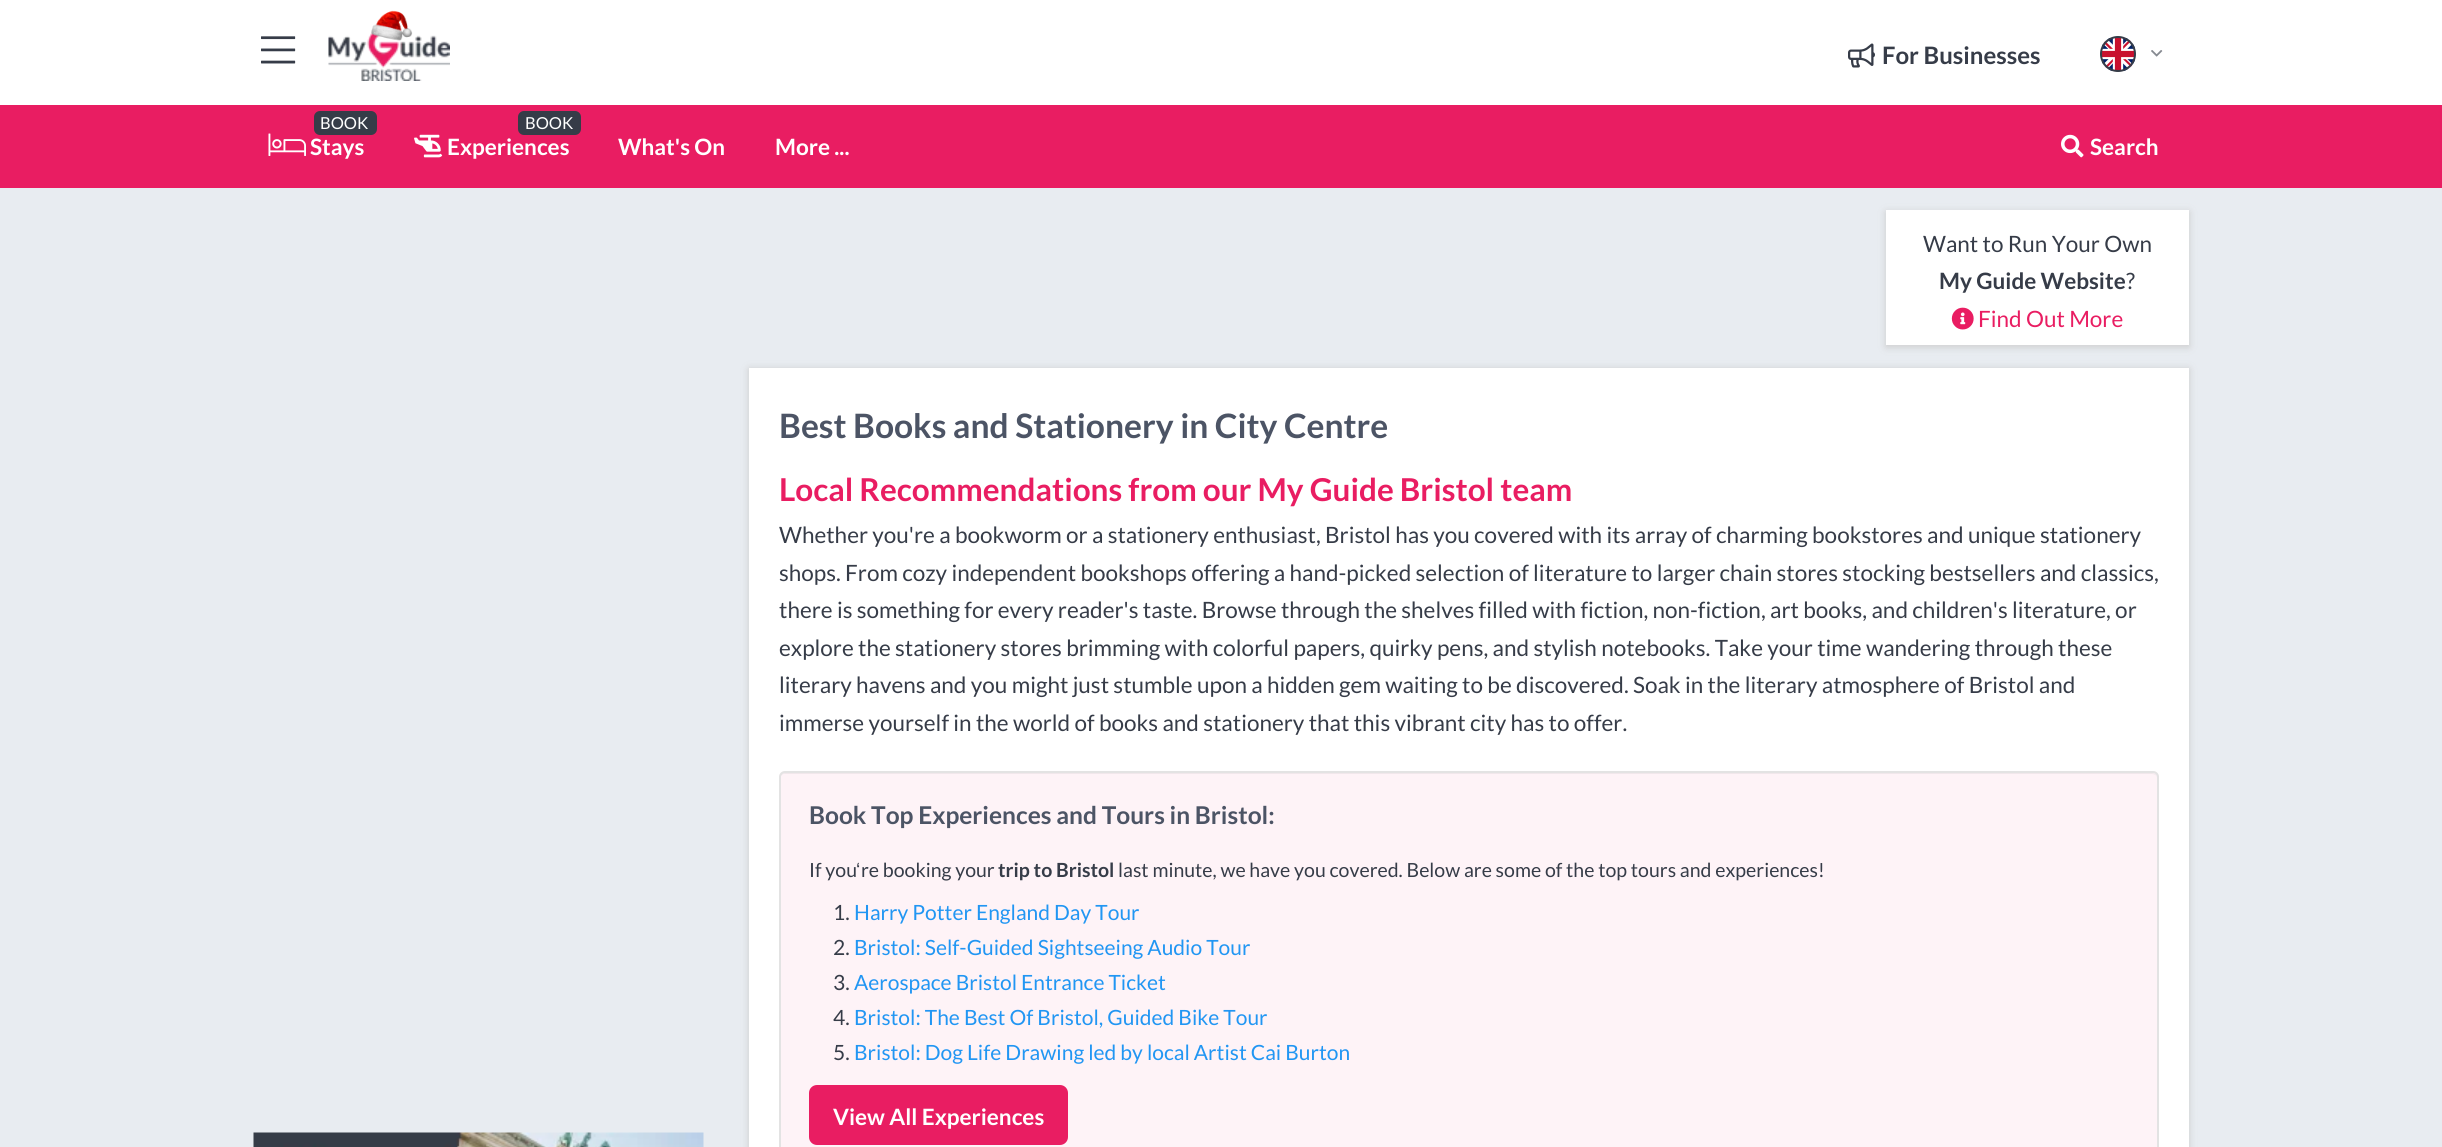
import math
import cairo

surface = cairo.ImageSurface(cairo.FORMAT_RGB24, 2442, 1147)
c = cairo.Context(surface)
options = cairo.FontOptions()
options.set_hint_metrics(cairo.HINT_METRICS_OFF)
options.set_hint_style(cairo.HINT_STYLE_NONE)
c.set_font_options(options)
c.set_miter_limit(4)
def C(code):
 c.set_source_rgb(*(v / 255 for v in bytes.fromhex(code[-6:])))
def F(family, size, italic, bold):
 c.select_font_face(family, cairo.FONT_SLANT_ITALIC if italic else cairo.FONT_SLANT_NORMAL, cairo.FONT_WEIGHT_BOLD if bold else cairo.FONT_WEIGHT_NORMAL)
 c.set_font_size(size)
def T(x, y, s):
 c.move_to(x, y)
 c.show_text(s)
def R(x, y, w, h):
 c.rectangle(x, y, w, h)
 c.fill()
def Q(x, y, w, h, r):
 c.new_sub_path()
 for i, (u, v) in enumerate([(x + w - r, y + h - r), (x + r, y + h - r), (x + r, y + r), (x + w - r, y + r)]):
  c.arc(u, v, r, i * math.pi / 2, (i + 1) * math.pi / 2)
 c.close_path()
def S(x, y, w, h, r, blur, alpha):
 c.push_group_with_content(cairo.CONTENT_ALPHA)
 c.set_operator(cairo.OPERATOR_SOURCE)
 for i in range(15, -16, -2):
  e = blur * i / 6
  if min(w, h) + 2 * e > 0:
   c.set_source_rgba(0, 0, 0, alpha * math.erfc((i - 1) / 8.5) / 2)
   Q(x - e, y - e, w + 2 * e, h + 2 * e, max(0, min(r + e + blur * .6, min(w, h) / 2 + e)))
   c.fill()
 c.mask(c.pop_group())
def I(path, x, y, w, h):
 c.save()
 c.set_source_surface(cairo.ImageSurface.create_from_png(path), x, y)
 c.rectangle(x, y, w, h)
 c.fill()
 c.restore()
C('ffffff')
c.paint()
I('1.png',261,36,35,28)
I('3.png',328,31,122,50)
I('2.png',371,10,42,31)
I('4.png',1848,43,27,25)
F('Lato',24,0,1)
C('363c48')
T(1882,64,'For Businesses')
I('5.png',2102,38,33,33)
c.arc(2118,54,17,0,2 * math.pi)
c.stroke()
I('6.png',2151,50,12,7)
C('e91d62')
R(0,105,2442,83)
C('363c48')
Q(314,111,63,24,6)
c.fill()
F('Lato',16.5,0,0)
C('ffffff')
T(320,129,'BOOK')
I('7.png',268,133,38,23)
F('Lato',22.5,0,1)
T(310,155,'Stays')
C('363c48')
Q(518,111,63,24,6)
c.fill()
F('Lato',16.5,0,0)
C('ffffff')
T(525,129,'BOOK')
I('8.png',414,134,29,24)
F('Lato',22.5,0,1)
T(447,155,'Experiences')
T(618,155,'What\'s On')
T(775,155,'More ...')
I('9.png',2061,134,23,24)
T(2090,155,'Search')
C('e8ecf1')
R(0,188,2442,959)
C('cccccc')
S(1886,212,303,135,0,4,1)
C('ffffff')
R(1886,210,303,135)
F('Lato',22.5,0,0)
C('363c48')
T(1923,252,'Want to Run Your Own')
F('Lato',22.5,0,1)
T(1939,289,'My Guide Website')
F('Lato',22.5,0,0)
T(2126,289,'?')
I('10.png',1951,307,23,23)
C('e91d62')
T(1978,327,'Find Out More')
C('cccccc')
S(749,369,1440,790,0,4,1)
C('ffffff')
R(749,368,1440,779)
F('Lato',33.6,0,1)
C('4c5465')
T(779,438,'Best Books and Stationery in City Centre')
F('Lato',31.5,0,1)
C('e91d62')
T(779,501,'Local Recommendations from our My Guide Bristol team')
F('Lato',22.5,0,0)
C('363c48')
T(779,543,'Whether you\'re a bookworm or a stationery enthusiast, Bristol has you covered with its array of charming bookstores and unique stationery')
T(779,581,'shops. From cozy independent bookshops offering a hand-picked selection of literature to larger chain stores stocking bestsellers and classics,')
T(779,618,'there is something for every reader\'s taste. Browse through the shelves filled with fiction, non-fiction, art books, and children\'s literature, or')
T(779,656,'explore the stationery stores brimming with colorful papers, quirky pens, and stylish notebooks. Take your time wandering through these')
T(779,693,'literary havens and you might just stumble upon a hidden gem waiting to be discovered. Soak in the literary atmosphere of Bristol and')
T(779,731,'immerse yourself in the world of books and stationery that this vibrant city has to offer.')
C('fef3f7')
Q(779,771,1380,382,6)
c.fill()
C('f1e7eb')
c.new_path()
c.move_to(784,774)
c.line_to(2152,774)
c.curve_to(2155,774,2157,776,2157,778)
c.curve_to(2157,775,2155,773,2152,773)
c.line_to(785,773)
c.curve_to(782,773,780,775,780,778)
c.curve_to(780,776,782,774,784,774)
c.close_path()
c.fill()
Q(780,772,1378,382,5)
C('e3e3e3')
c.stroke()
F('Lato',24.5,0,1)
C('4c5465')
T(809,824,'Book Top Experiences and Tours in Bristol:')
F('Lato',19.5,0,0)
C('363c48')
T(809,877,'If you')
F('Liberation Sans',19.5,0,0)
T(856,877,'ʻ')
F('Lato',19.5,0,0)
T(861,877,'re booking your')
F('Lato',19.5,0,1)
T(998,877,'trip to Bristol')
F('Lato',19.5,0,0)
T(1118,877,'last minute, we have you covered. Below are some of the top tours and experiences!')
F('Lato',21,0,0)
T(833,920,'1.')
C('2196f3')
T(854,920,'Harry Potter England Day Tour')
C('363c48')
T(833,955,'2.')
C('2196f3')
T(854,955,'Bristol: Self-Guided Sightseeing Audio Tour')
C('363c48')
T(833,990,'3.')
C('2196f3')
T(854,990,'Aerospace Bristol Entrance Ticket')
C('363c48')
T(833,1025,'4.')
C('2196f3')
T(854,1025,'Bristol: The Best Of Bristol, Guided Bike Tour')
C('363c48')
T(833,1060,'5.')
C('2196f3')
T(854,1060,'Bristol: Dog Life Drawing led by local Artist Cai Burton')
C('e91d62')
Q(809,1085,259,60,8)
c.fill()
F('Lato',22.5,0,1)
C('ffffff')
T(833,1125,'View All Experiences')
I('11.png',253,1132,451,15)
surface.write_to_png('o.png')
